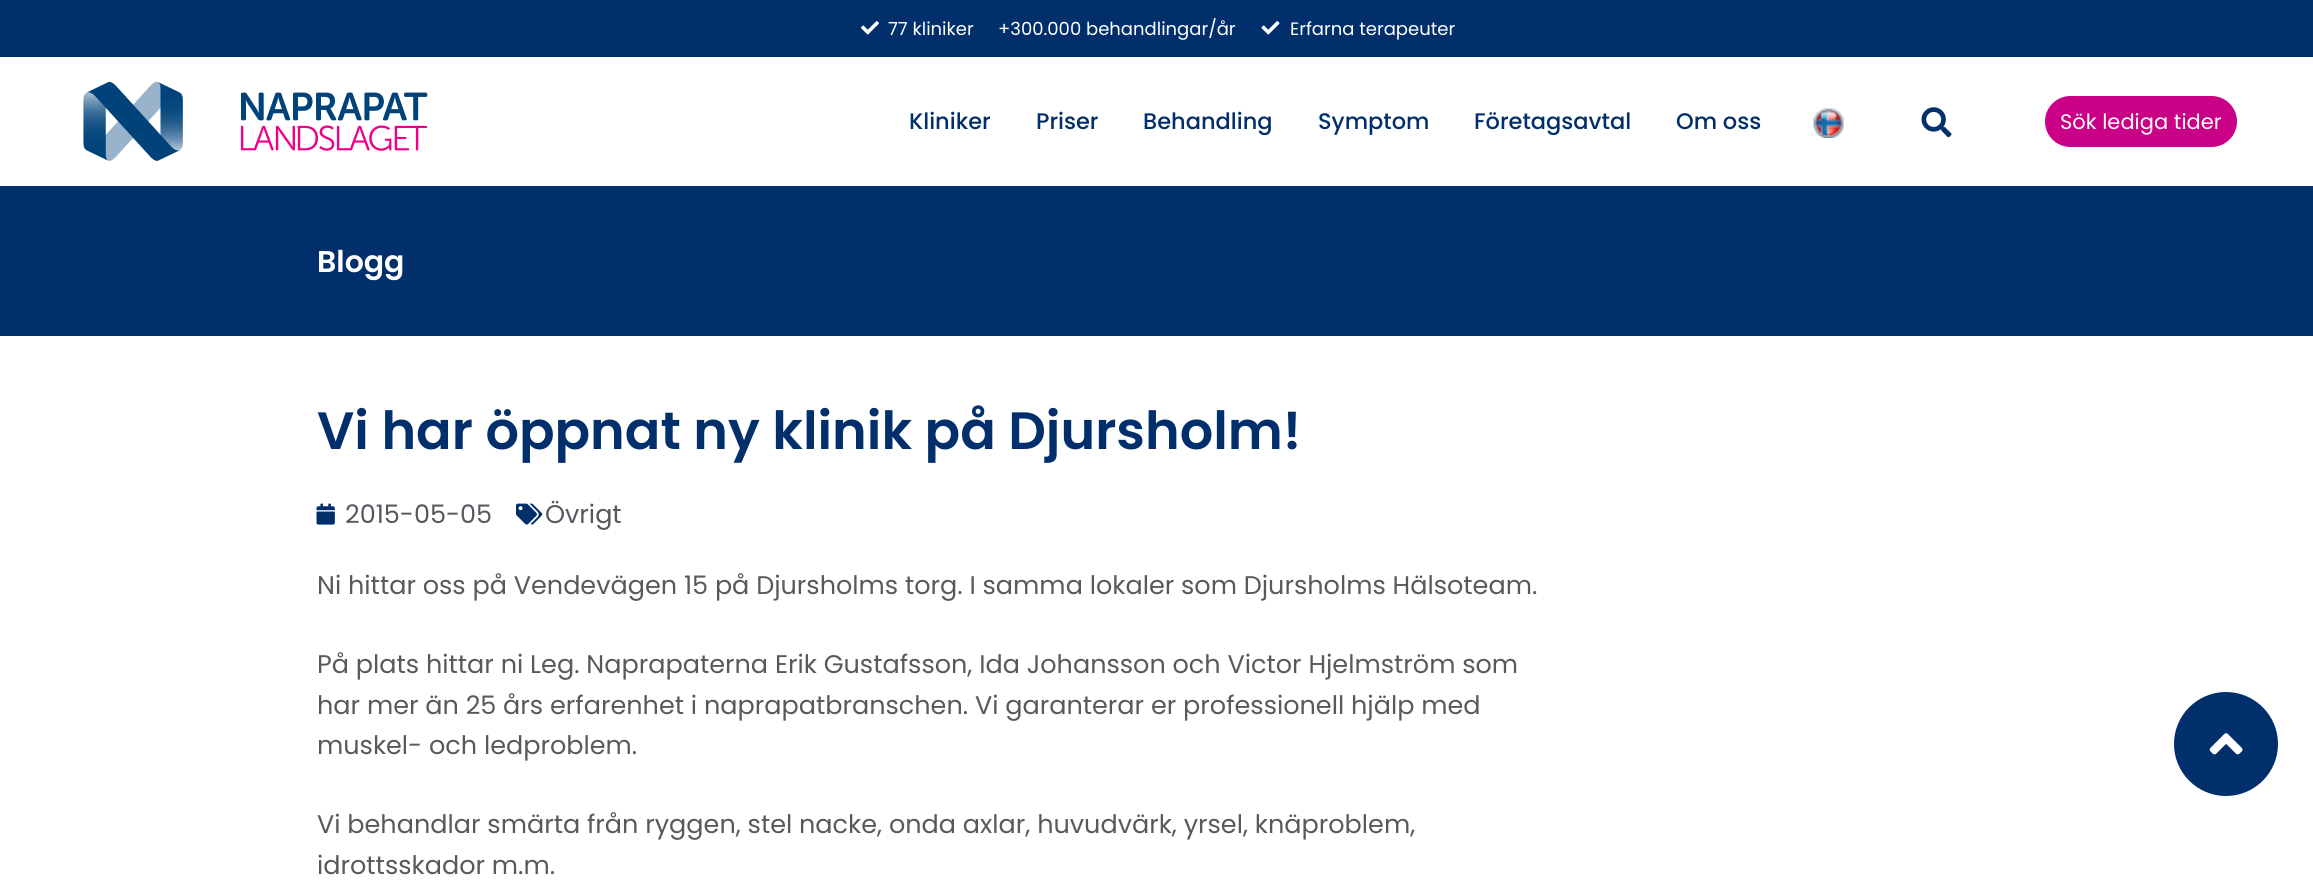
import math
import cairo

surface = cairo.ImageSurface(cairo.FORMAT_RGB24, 2313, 888)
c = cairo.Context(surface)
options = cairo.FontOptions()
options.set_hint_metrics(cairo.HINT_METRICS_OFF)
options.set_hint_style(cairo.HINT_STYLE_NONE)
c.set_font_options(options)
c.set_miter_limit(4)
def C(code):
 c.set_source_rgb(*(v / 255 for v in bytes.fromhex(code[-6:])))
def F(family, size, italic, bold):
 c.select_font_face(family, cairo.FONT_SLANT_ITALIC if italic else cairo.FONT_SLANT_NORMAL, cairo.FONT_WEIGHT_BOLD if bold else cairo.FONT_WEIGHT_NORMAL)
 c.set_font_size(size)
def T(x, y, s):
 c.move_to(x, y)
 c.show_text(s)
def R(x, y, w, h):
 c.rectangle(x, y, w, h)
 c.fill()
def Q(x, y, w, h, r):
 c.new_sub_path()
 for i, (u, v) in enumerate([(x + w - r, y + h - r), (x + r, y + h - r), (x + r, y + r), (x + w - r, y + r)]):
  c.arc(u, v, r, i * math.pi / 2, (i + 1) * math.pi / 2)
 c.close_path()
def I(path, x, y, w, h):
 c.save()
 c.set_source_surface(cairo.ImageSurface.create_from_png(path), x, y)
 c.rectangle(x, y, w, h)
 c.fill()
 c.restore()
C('ffffff')
c.paint()
C('012f6c')
R(0,0,2313,57)
I('1.png',861,21,18,14)
F('Poppins',18,0,0)
C('ffffff')
T(888,35,'77 kliniker')
T(998,35,'+300.000 behandlingar/år')
I('2.png',1261,21,19,14)
T(1290,35,'Erfarna terapeuter')
I('3.png',83,81,345,80)
F('Poppins Medium',22.5,0,0)
C('012f6c')
T(909,129,'Kliniker')
T(1036,129,'Priser')
T(1143,129,'Behandling')
T(1318,129,'Symptom')
T(1474,129,'Företagsavtal')
T(1676,129,'Om oss')
I('4.png',1813,108,31,30)
I('5.png',1921,107,31,31)
C('ca0086')
Q(2045,96,192,51,25.5)
c.fill()
F('Poppins',21,0,0)
C('ffffff')
T(2060,129,'Sök lediga tider')
C('012f6c')
R(0,186,2313,150)
F('Poppins SemiBold',30,0,0)
C('ffffff')
T(317,272,'Blogg')
F('Poppins SemiBold',52.5,0,0)
C('012f6c')
T(317,449,'Vi har öppnat ny klinik på Djursholm!')
I('6.png',316,503,19,22)
F('Poppins',25.5,0,0)
C('54595f')
T(345,523,'2015-05-05')
I('7.png',516,503,27,22)
T(545,523,'Övrigt')
C('595959')
T(317,594,'Ni hittar oss på Vendevägen 15 på Djursholms torg. I samma lokaler som Djursholms Hälsoteam.')
T(317,673,'På plats hittar ni Leg. Naprapaterna Erik Gustafsson, Ida Johansson och Victor Hjelmström som')
T(317,714,'har mer än 25 års erfarenhet i naprapatbranschen. Vi garanterar er professionell hjälp med')
T(317,754,'muskel- och ledproblem.')
T(317,833,'Vi behandlar smärta från ryggen, stel nacke, onda axlar, huvudvärk, yrsel, knäproblem,')
T(317,874,'idrottsskador m.m.')
C('012f6c')
c.new_path()
c.arc(2226,744,54.5,0,2 * math.pi)
c.fill_preserve()
C('ffffff')
c.set_line_width(5)
c.stroke()
I('8.png',2209,733,34,22)
surface.write_to_png('o.png')
